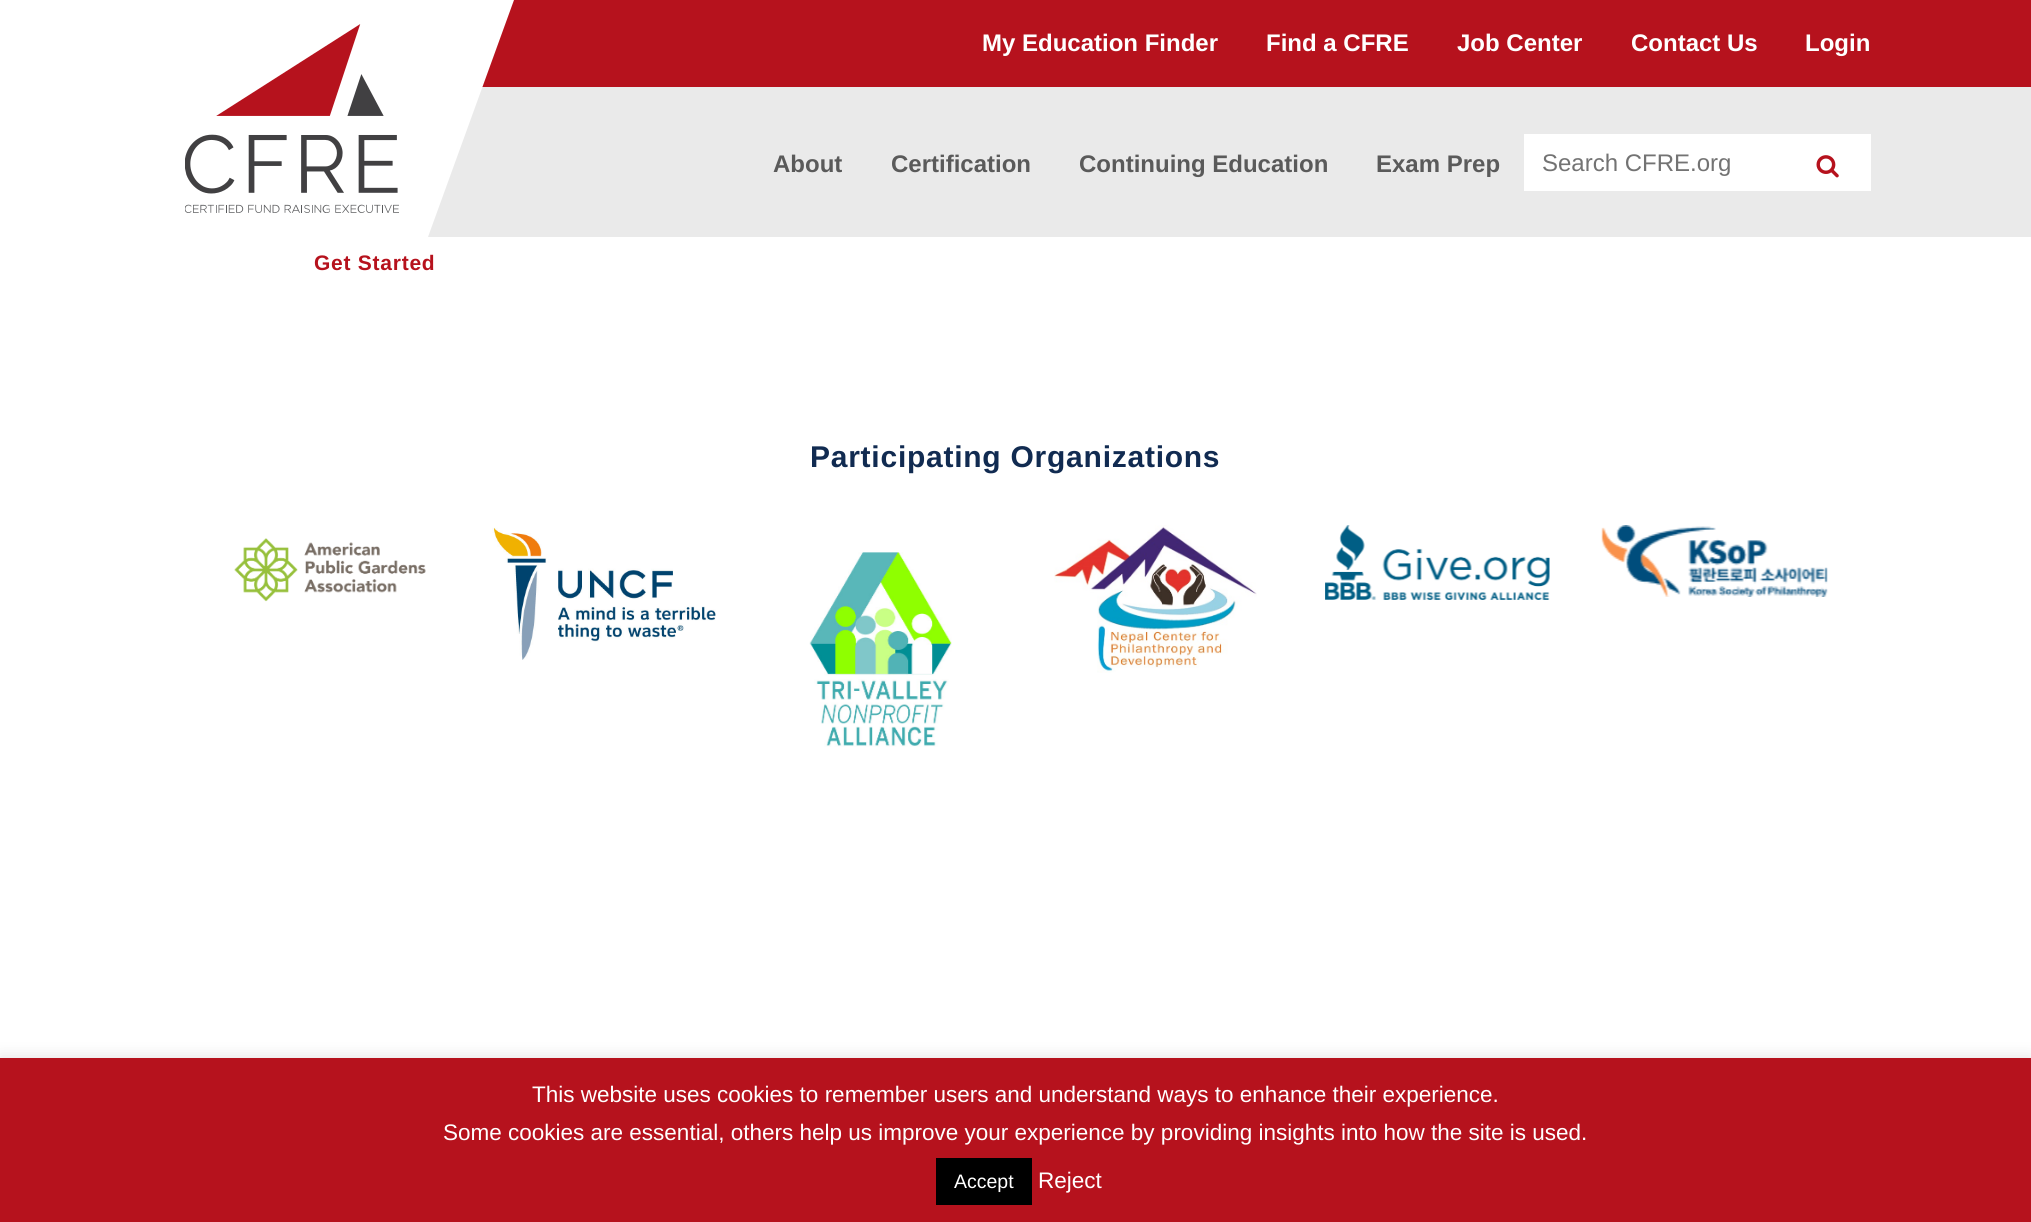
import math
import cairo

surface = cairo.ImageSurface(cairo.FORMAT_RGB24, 2031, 1222)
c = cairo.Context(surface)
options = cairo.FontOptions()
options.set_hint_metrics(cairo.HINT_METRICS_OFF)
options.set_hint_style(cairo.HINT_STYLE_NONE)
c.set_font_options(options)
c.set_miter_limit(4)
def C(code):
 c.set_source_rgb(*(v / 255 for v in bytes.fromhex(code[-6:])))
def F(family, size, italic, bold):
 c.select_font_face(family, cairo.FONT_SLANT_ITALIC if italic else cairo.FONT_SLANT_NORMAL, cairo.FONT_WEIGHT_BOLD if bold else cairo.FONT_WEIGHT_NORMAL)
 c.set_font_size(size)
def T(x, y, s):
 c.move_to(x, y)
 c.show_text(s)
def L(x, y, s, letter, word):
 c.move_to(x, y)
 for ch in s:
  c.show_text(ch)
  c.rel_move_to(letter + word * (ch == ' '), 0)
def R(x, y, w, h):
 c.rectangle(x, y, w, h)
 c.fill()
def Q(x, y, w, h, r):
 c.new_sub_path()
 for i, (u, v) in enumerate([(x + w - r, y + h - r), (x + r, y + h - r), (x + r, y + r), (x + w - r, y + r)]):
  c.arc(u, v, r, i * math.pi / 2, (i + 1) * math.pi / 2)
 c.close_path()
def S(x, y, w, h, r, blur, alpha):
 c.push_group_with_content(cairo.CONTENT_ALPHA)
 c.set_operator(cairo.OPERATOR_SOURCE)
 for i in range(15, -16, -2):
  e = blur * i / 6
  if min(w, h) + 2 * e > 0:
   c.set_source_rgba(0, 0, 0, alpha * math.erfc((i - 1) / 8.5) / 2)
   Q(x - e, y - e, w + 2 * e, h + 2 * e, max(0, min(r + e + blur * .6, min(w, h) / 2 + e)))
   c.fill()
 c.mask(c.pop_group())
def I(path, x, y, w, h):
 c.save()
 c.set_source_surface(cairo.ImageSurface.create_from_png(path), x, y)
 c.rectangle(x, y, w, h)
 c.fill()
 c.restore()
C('ffffff')
c.paint()
C('eaeaea')
R(428,87,1603,150)
C('b6121d')
R(218,0,1813,87)
C('ffffff')
c.new_path()
c.move_to(228,0)
c.line_to(514,0)
c.line_to(428,237)
c.line_to(141,237)
c.close_path()
c.fill()
c.new_path()
c.move_to(-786,0)
c.line_to(229,0)
c.line_to(143,237)
c.line_to(-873,237)
c.close_path()
c.fill()
I('1.png',185,24,214,189)
F('Liberation Sans',24,0,1)
T(982,51,'My Education Finder')
T(1266,51,'Find a CFRE')
T(1457,51,'Job Center')
T(1631,51,'Contact Us')
T(1805,51,'Login')
C('5a5a5a')
T(773,172,'About')
T(891,172,'Certification')
T(1079,172,'Continuing Education')
T(1376,172,'Exam Prep')
C('ffffff')
R(1524,134,347,57)
F('Liberation Sans',24,0,0)
C('737373')
T(1542,171,'Search CFRE.org')
I('2.png',1816,155,23,23)
F('Liberation Sans',21,0,1)
C('b6121d')
L(314,270,'Get Started',.75,0)
F('Liberation Sans',30,0,1)
C('112b51')
L(810,467,'Participating Organizations',.75,0)
I('3.png',234,538,192,64)
I('4.png',492,527,224,133)
I('5.png',809,552,143,195)
I('6.png',1054,525,203,148)
I('7.png',1325,525,225,75)
I('8.png',1601,525,227,72)
C('acabab')
S(0,1056,2031,165,0,7.5,.3)
C('b6121d')
R(0,1058,2031,164)
F('Liberation Sans',22.5,0,0)
C('ffffff')
T(532,1102,'This website uses cookies to remember users and understand ways to enhance their experience.')
T(443,1140,'Some cookies are essential, others help us improve your experience by providing insights into how the site is used.')
C('000000')
R(936,1158,96,47)
F('Liberation Sans',19.5,0,0)
C('ffffff')
T(954,1188,'Accept')
F('Liberation Sans',22.5,0,0)
T(1038,1188,'Reject')
surface.write_to_png('o.png')
